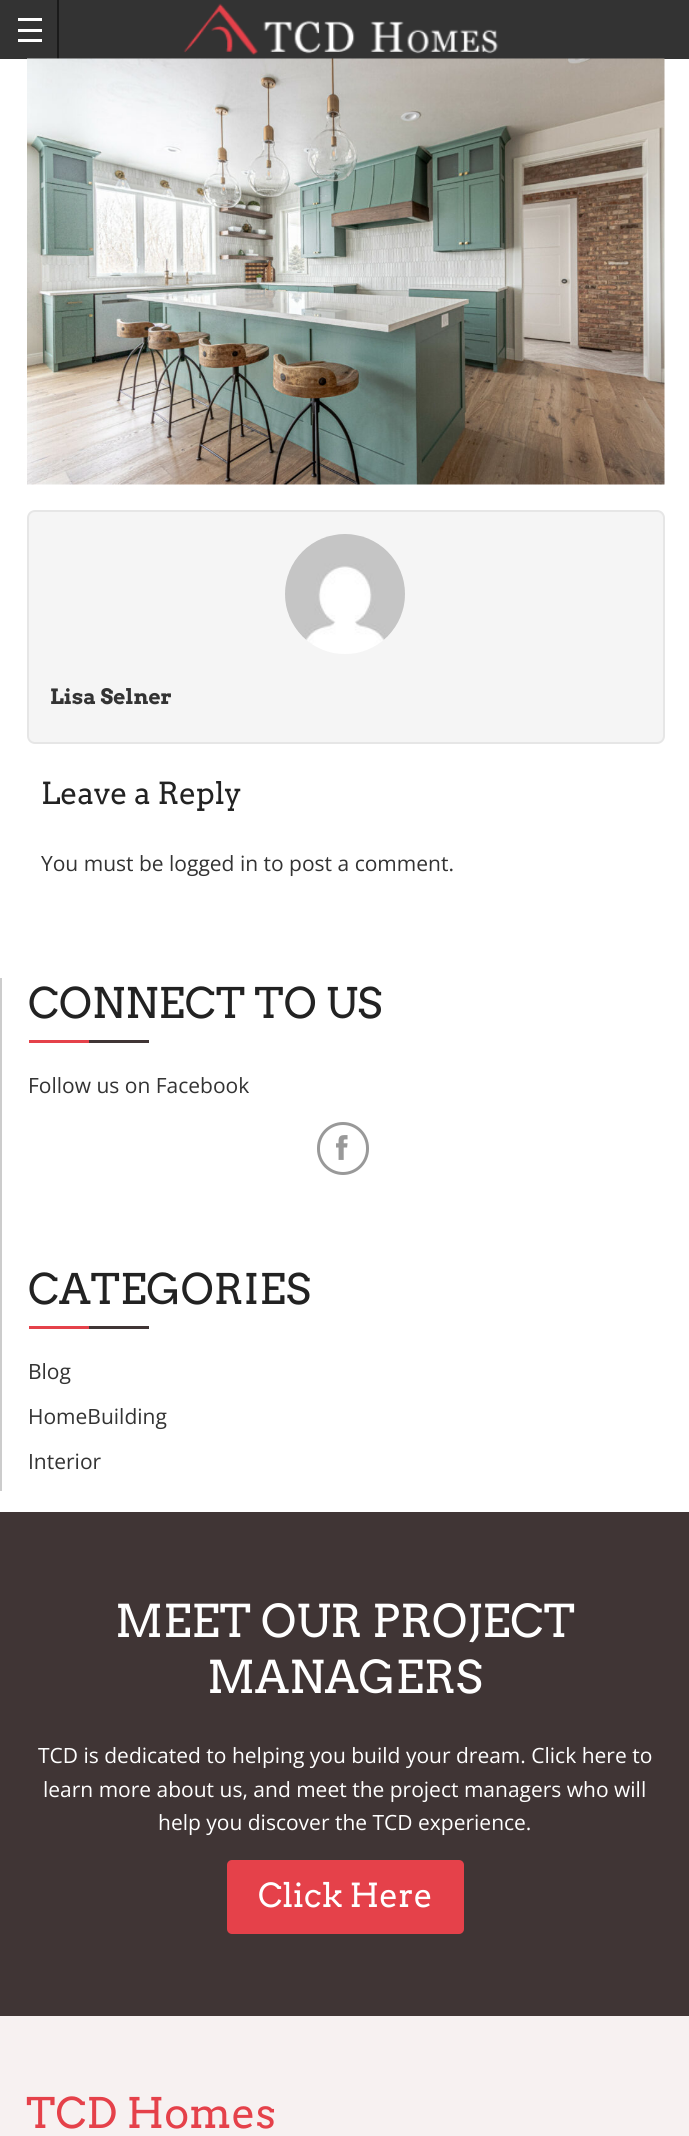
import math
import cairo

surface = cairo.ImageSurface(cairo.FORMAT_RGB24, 689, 2136)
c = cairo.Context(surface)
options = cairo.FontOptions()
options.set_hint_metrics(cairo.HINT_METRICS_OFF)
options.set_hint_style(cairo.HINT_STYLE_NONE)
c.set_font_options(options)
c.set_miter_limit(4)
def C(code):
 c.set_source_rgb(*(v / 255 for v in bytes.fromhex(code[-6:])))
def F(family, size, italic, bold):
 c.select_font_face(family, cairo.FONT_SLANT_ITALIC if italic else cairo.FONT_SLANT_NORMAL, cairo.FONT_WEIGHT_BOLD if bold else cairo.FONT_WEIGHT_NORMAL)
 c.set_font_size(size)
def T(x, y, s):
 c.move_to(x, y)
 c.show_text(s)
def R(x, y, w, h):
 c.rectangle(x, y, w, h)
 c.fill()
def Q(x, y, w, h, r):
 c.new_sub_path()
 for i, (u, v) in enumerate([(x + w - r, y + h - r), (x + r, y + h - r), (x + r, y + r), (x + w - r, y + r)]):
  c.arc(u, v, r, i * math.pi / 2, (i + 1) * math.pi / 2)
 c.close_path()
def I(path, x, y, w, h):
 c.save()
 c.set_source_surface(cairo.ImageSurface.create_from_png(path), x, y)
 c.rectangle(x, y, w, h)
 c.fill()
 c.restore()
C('ffffff')
c.paint()
C('333333')
R(0,0,689,59)
C('1a1a1a')
R(57,0,2,59)
C('ffffff')
R(18,39,24,3)
R(18,29,24,3)
R(18,18,24,3)
I('1.png',183,3,316,52)
I('2.png',27,58,638,427)
C('f5f5f5')
Q(28,511,636,232,7)
c.fill_preserve()
C('e6e6e6')
c.stroke()
I('3.png',285,534,120,120)
F('Arvo',21,0,1)
C('333333')
T(50,704,'Lisa Selner')
F('Arvo',30.25,0,0)
C('222222')
T(41,804,'Leave a Reply')
F('Open Sans',21,0,0)
C('333333')
T(41,871,'You must be logged in to post a comment.')
C('cccccc')
R(0,978,2,513)
F('Arvo',42,0,0)
C('222222')
T(28,1018,'CONNECT TO US')
C('e5414a')
R(29,1040,60,3)
C('403535')
R(89,1040,60,3)
F('Open Sans',21,0,0)
C('333333')
T(28,1093,'Follow us on Facebook')
Q(318.5,1123.5,49,50,24.5)
C('999999')
c.set_line_width(3)
c.stroke()
I('4.png',336,1135,12,25)
F('Arvo',42,0,0)
C('222222')
T(28,1304,'CATEGORIES')
C('e5414a')
R(29,1326,60,3)
C('403535')
R(89,1326,60,3)
F('Open Sans',21,0,0)
C('333333')
T(28,1379,'Blog')
T(28,1424,'HomeBuilding')
T(28,1469,'Interior')
C('403535')
R(0,1512,689,504)
F('Arvo',45,0,0)
C('ffffff')
T(115,1637,'MEET OUR PROJECT')
T(207,1693,'MANAGERS')
F('Open Sans',21,0,0)
T(38,1763,'TCD is dedicated to helping you build your dream. Click here to')
T(43,1797,'learn more about us, and meet the project managers who will')
T(158,1830,'help you discover the TCD experience.')
C('e5414a')
Q(227,1860,237,74,5)
c.fill()
F('Arvo',33,0,0)
C('ffffff')
T(258,1907,'Click Here')
C('f7f1f1')
R(0,2016,689,120)
F('Arvo',42,0,0)
C('e5414a')
T(26,2128,'TCD Homes')
surface.write_to_png('o.png')
